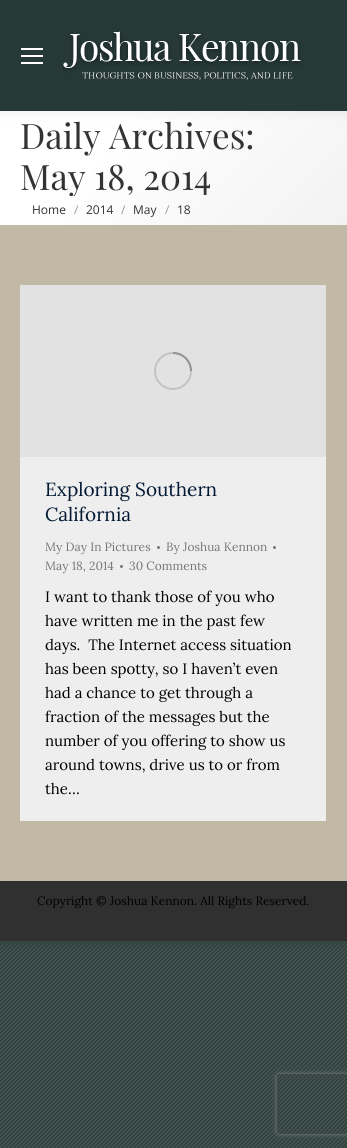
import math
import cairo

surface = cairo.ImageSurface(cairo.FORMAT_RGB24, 347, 1148)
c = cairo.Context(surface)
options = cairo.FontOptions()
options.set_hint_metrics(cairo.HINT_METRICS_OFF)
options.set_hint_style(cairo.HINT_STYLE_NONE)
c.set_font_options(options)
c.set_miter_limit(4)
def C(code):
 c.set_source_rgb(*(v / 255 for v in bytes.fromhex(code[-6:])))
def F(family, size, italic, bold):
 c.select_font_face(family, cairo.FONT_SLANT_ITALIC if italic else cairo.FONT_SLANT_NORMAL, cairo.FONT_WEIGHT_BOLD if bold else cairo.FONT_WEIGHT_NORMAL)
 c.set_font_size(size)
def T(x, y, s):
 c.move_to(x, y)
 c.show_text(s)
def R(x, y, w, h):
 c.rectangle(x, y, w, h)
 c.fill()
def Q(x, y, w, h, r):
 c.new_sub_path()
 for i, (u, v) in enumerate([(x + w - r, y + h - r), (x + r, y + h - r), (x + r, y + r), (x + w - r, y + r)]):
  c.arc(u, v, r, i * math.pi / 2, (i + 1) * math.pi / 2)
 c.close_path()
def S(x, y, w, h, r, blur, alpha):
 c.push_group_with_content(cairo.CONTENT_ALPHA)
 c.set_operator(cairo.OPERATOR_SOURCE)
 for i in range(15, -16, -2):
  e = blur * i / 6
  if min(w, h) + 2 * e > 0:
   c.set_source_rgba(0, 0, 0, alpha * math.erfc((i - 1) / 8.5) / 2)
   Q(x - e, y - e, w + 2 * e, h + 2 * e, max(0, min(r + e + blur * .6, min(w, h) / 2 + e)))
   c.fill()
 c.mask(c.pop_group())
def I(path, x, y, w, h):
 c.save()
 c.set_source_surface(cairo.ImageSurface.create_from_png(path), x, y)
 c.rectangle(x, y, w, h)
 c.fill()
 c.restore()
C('ffffff')
c.paint()
I('1.png',0,941,347,207)
C('000000')
S(0,0,347,941,0,6,.15)
C('c2b8a6')
R(0,225,347,656)
gradient = cairo.LinearGradient(58,53,289,283)
gradient.add_color_stop_rgba(.3,1,1,1,1)
gradient.add_color_stop_rgba(1,0.949,0.949,0.949,1)
c.set_source(gradient)
R(0,111,347,114)
C('000000')
S(-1,-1,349,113,0,7.5,.07)
C('263937')
R(0,0,347,111)
C('ffffff')
R(21,48,22,2)
R(21,55,22,2)
R(21,62,22,2)
I('2.png',62,31,239,49)
F('Playfair Display',35,0,0)
C('333333')
T(20,149,'Daily Archives:')
c.save()
c.rectangle(20,114,307,82)
c.clip()
T(20,190,'May 18, 2014')
c.restore()
F('Open Sans',12,0,0)
T(32,214,'Home')
C('989898')
T(74,214,'/')
C('333333')
T(86,214,'2014')
C('989898')
T(121,214,'/')
C('333333')
T(133,214,'May')
C('989898')
T(165,214,'/')
C('333333')
T(177,214,'18')
C('eeeeee')
R(20,457,306,364)
C('e2e2e2')
R(20,285,306,172)
c.new_path()
c.arc(173,371,18,0,2 * math.pi)
C('c3c3c3')
c.stroke()
c.new_path()
c.move_to(191,371)
c.curve_to(191,361,183,353,173,353)
c.set_source_rgba(0,0,0,0.25)
c.stroke()
F('Lora',19,0,0)
C('021833')
T(45,496,'Exploring Southern')
T(45,521,'California')
F('Lora',12,0,0)
C('777777')
T(45,551,'My Day In Pictures')
c.new_path()
c.arc(158.5,547.5,1.5,0,2 * math.pi)
c.fill()
T(166,551,'By Joshua Kennon')
c.new_path()
c.arc(274.5,547.5,1.5,0,2 * math.pi)
c.fill()
T(45,570,'May 18, 2014')
c.new_path()
c.arc(121.5,566.5,1.5,0,2 * math.pi)
c.fill()
T(129,570,'30 Comments')
F('Lora',15,0,0)
C('000000')
T(45,602,'I want to thank those of you who')
T(45,626,'have written me in the past few')
T(45,650,'days.  The Internet access situation')
T(45,674,'has been spotty, so I haven’t even')
T(45,698,'had a chance to get through a')
T(45,722,'fraction of the messages but the')
T(45,746,'number of you offering to show us')
T(45,770,'around towns, drive us to or from')
T(45,794,'the…')
C('303030')
R(0,881,347,60)
F('Lora',12,0,0)
C('000000')
T(37,905,'Copyright © Joshua Kennon. All Rights Reserved.')
c.save()
c.set_fill_rule(cairo.FILL_RULE_EVEN_ODD)
c.new_path()
c.move_to(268,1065)
c.line_to(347,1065)
c.line_to(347,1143)
c.line_to(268,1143)
c.close_path()
c.move_to(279,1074)
c.line_to(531,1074)
c.curve_to(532,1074,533,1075,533,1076)
c.line_to(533,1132)
c.curve_to(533,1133,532,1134,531,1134)
c.line_to(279,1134)
c.curve_to(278,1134,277,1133,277,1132)
c.line_to(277,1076)
c.curve_to(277,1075,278,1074,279,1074)
c.close_path()
c.clip()
C('808080')
S(277,1074,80,60,2,2.5,1)
c.restore()
surface.write_to_png('o.png')
